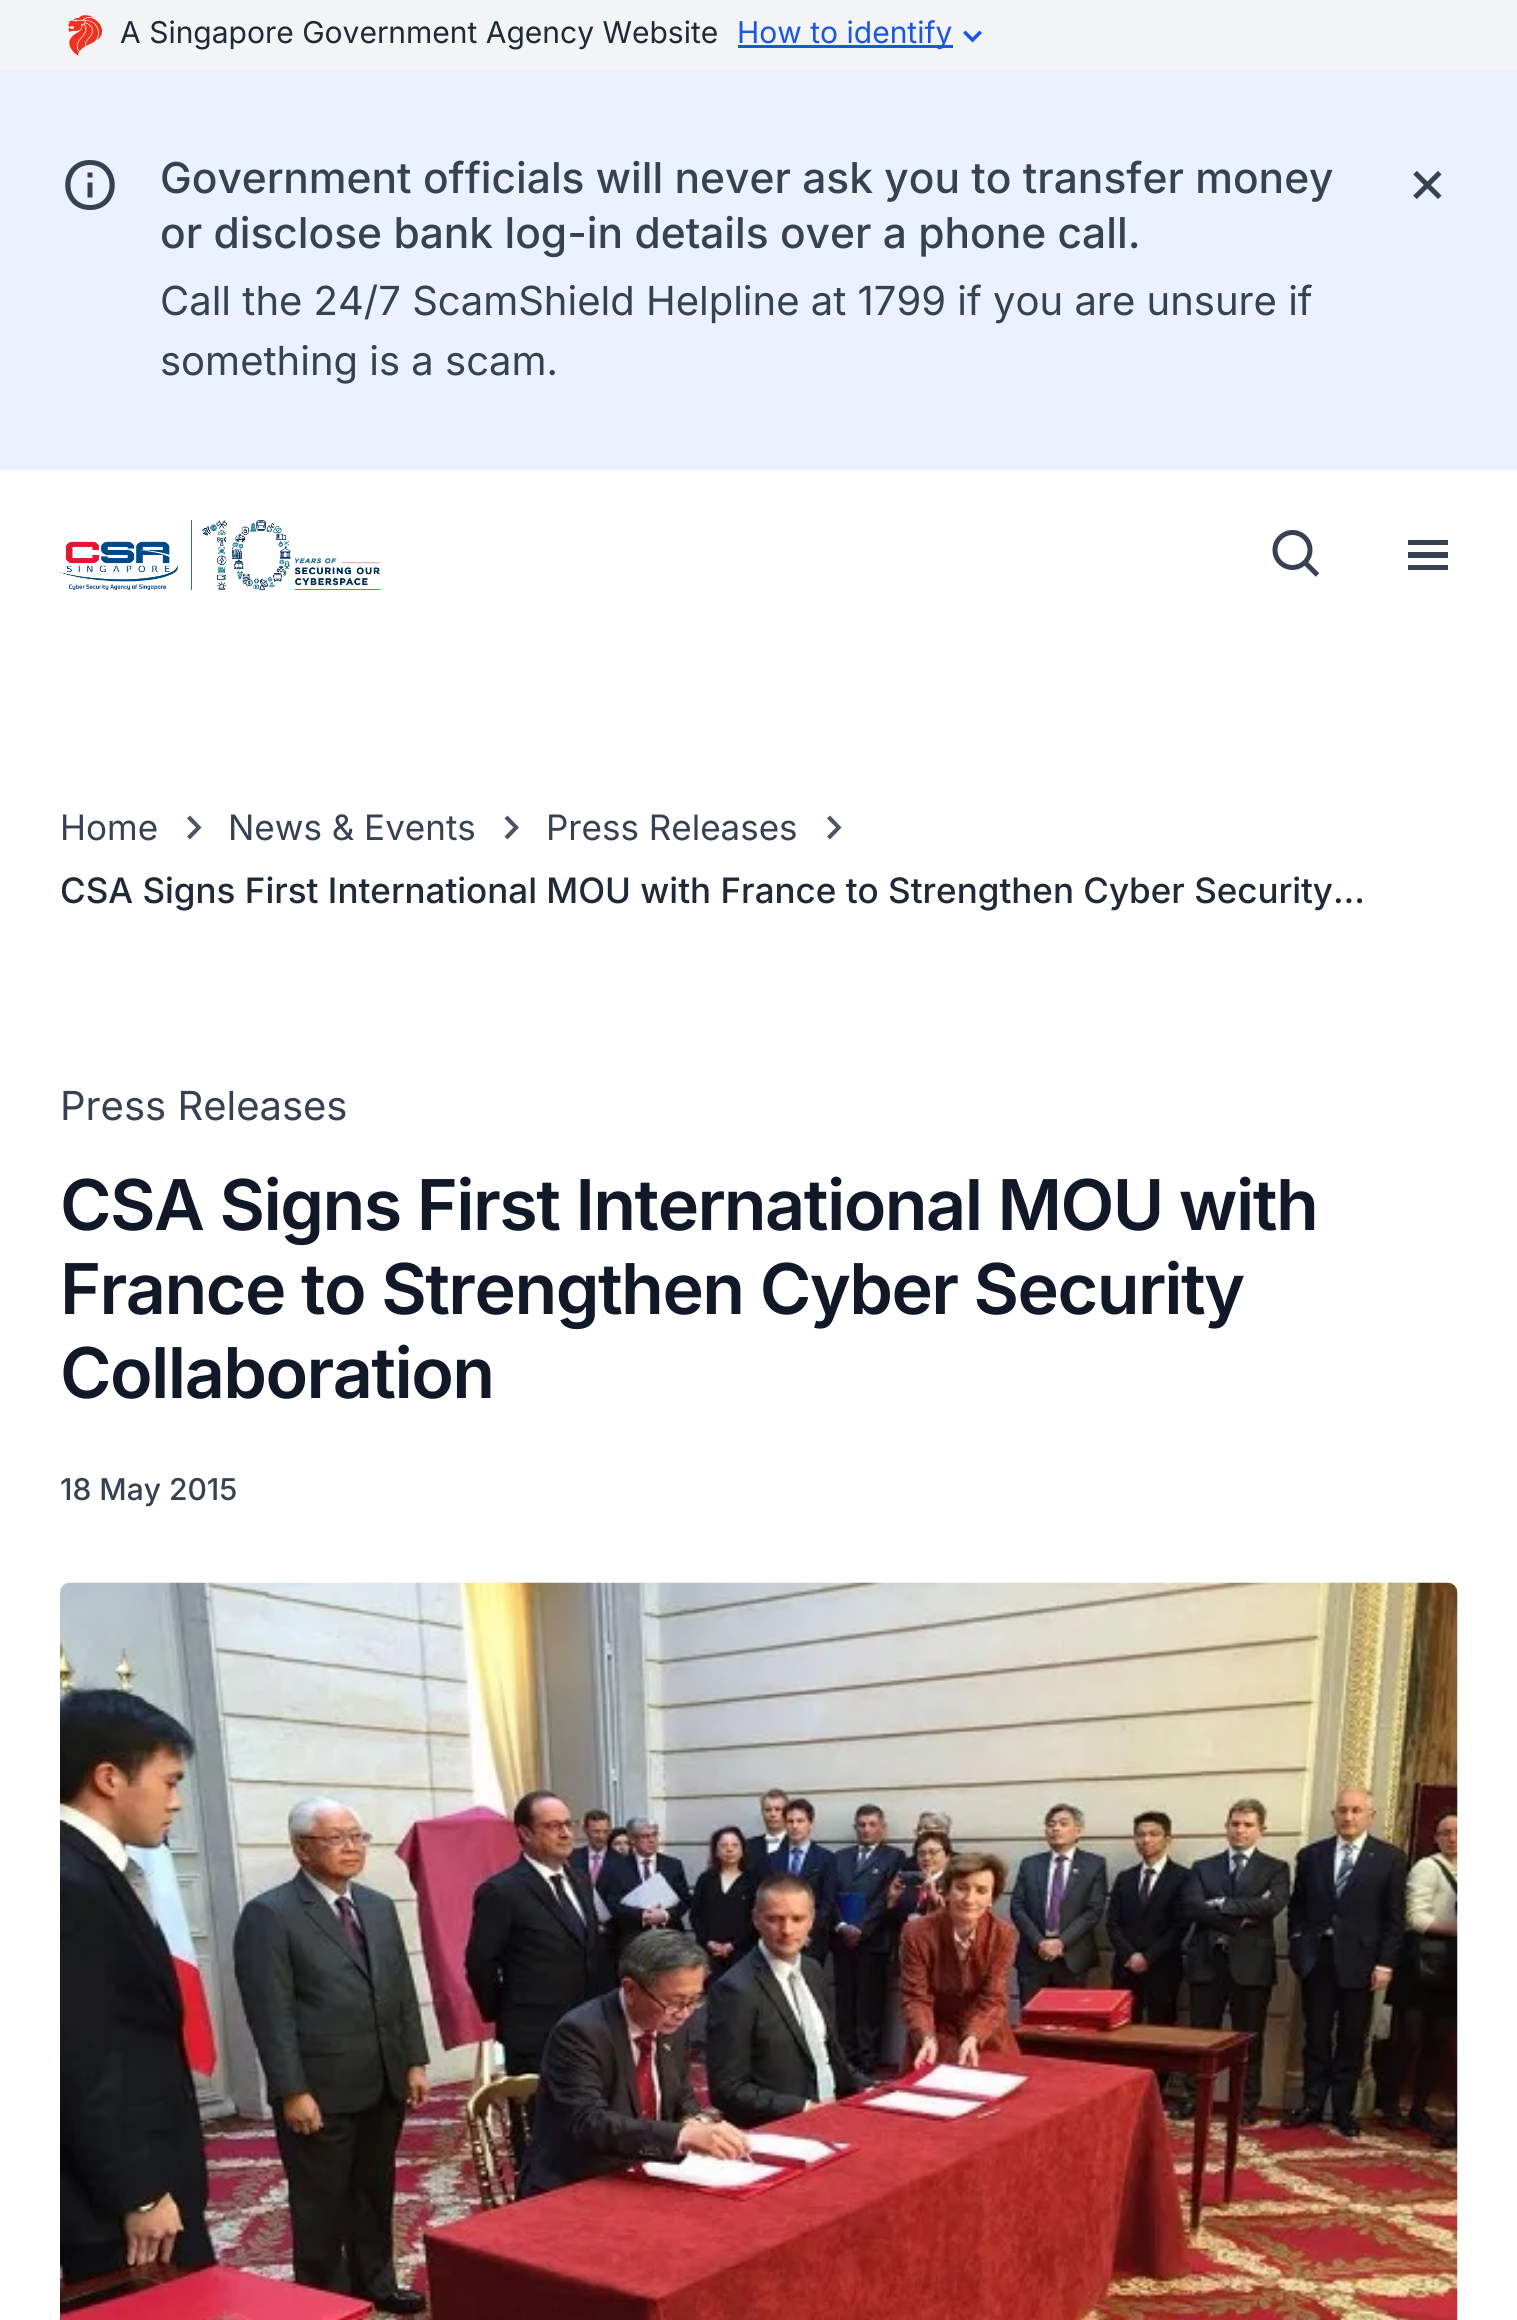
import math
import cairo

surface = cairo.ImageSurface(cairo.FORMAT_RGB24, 1517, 2320)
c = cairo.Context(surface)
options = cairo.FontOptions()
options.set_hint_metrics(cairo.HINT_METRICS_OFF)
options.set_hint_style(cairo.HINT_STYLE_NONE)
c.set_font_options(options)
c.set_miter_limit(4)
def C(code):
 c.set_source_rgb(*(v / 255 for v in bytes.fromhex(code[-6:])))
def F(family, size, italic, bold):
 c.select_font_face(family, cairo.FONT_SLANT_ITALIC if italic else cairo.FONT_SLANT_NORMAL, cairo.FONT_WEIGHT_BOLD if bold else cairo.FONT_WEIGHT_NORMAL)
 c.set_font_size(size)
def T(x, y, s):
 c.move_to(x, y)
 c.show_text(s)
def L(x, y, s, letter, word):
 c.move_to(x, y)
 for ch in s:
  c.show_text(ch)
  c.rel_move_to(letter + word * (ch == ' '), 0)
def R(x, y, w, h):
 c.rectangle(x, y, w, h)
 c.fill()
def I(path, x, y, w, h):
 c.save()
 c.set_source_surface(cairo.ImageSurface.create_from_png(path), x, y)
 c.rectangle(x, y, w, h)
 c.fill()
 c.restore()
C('ffffff')
c.paint()
C('f3f4f6')
R(0,0,1517,70)
I('1.png',68,15,35,41)
F('Inter',30,0,0)
C('1f2937')
T(120,43,'A Singapore Government Agency Website')
C('1a56e5')
R(738,45,215,3)
T(737,43,'How to identify')
c.new_path()
c.move_to(979.5,30.5)
c.line_to(972.5,37.5)
c.line_to(965.5,30.5)
c.line_to(963,33)
c.line_to(972.5,42.5)
c.line_to(982,33)
c.close_path()
c.fill()
C('eaf2ff')
R(0,70,1517,400)
C('374151')
c.new_path()
c.move_to(90,160)
c.curve_to(57,160,57,210,90,210)
c.curve_to(123,210,123,160,90,160)
c.close_path()
c.move_to(90,205)
c.curve_to(64,205,64,165,90,165)
c.curve_to(116,165,116,205,90,205)
c.close_path()
c.fill()
c.new_path()
c.move_to(87.5,182.5)
c.line_to(92.5,182.5)
c.line_to(92.5,197.5)
c.line_to(87.5,197.5)
c.close_path()
c.move_to(87.5,172.5)
c.line_to(92.5,172.5)
c.line_to(92.5,177.5)
c.line_to(87.5,177.5)
c.close_path()
c.fill()
F('Inter Medium',42.5,0,0)
T(160,193,'Government officials will never ask you to transfer money')
T(160,248,'or disclose bank log-in details over a phone call.')
F('Inter',40,0,0)
T(160,315,'Call the 24/7 ScamShield Helpline at 1799 if you are unsure if')
T(160,375,'something is a scam.')
I('2.png',1413,171,29,28)
I('3.png',60,520,320,70)
I('4.png',1272,530,48,47)
c.new_path()
c.move_to(1408,540)
c.line_to(1448,540)
c.line_to(1448,545)
c.line_to(1408,545)
c.close_path()
c.move_to(1408,552)
c.line_to(1448,552)
c.line_to(1448,558)
c.line_to(1408,558)
c.close_path()
c.move_to(1408,565)
c.line_to(1448,565)
c.line_to(1448,570)
c.line_to(1408,570)
c.close_path()
c.fill()
F('Inter',35,0,0)
T(60,840,'Home')
C('4b5563')
c.new_path()
c.move_to(190,839.5)
c.line_to(201.5,827.5)
c.line_to(190,815.5)
c.line_to(187,818.5)
c.line_to(196,827.5)
c.line_to(187,836.5)
c.close_path()
c.fill()
C('374151')
T(228,840,'News & Events')
C('4b5563')
c.new_path()
c.move_to(507.5,839.5)
c.line_to(519,827.5)
c.line_to(507.5,815.5)
c.line_to(504.5,818.5)
c.line_to(513.5,827.5)
c.line_to(504.5,836.5)
c.close_path()
c.fill()
C('374151')
T(546,840,'Press Releases')
C('4b5563')
c.new_path()
c.move_to(830,839.5)
c.line_to(841.5,827.5)
c.line_to(830,815.5)
c.line_to(827,818.5)
c.line_to(836,827.5)
c.line_to(827,836.5)
c.close_path()
c.fill()
F('Inter Medium',35,0,0)
C('1f2937')
T(60,903,'CSA Signs First International MOU with France to Strengthen Cyber Security…')
F('Inter',40,0,0)
C('374151')
T(60,1120,'Press Releases')
F('Inter SemiBold',70,0,0)
C('111827')
L(60,1230,'CSA Signs First International MOU with',-1.55,0)
L(60,1314,'France to Strengthen Cyber Security',-1.55,0)
L(60,1398,'Collaboration',-1.55,0)
F('Inter Medium',30,0,0)
C('374151')
T(60,1500,'18 May 2015')
I('5.png',60,1582,1398,738)
surface.write_to_png('o.png')
